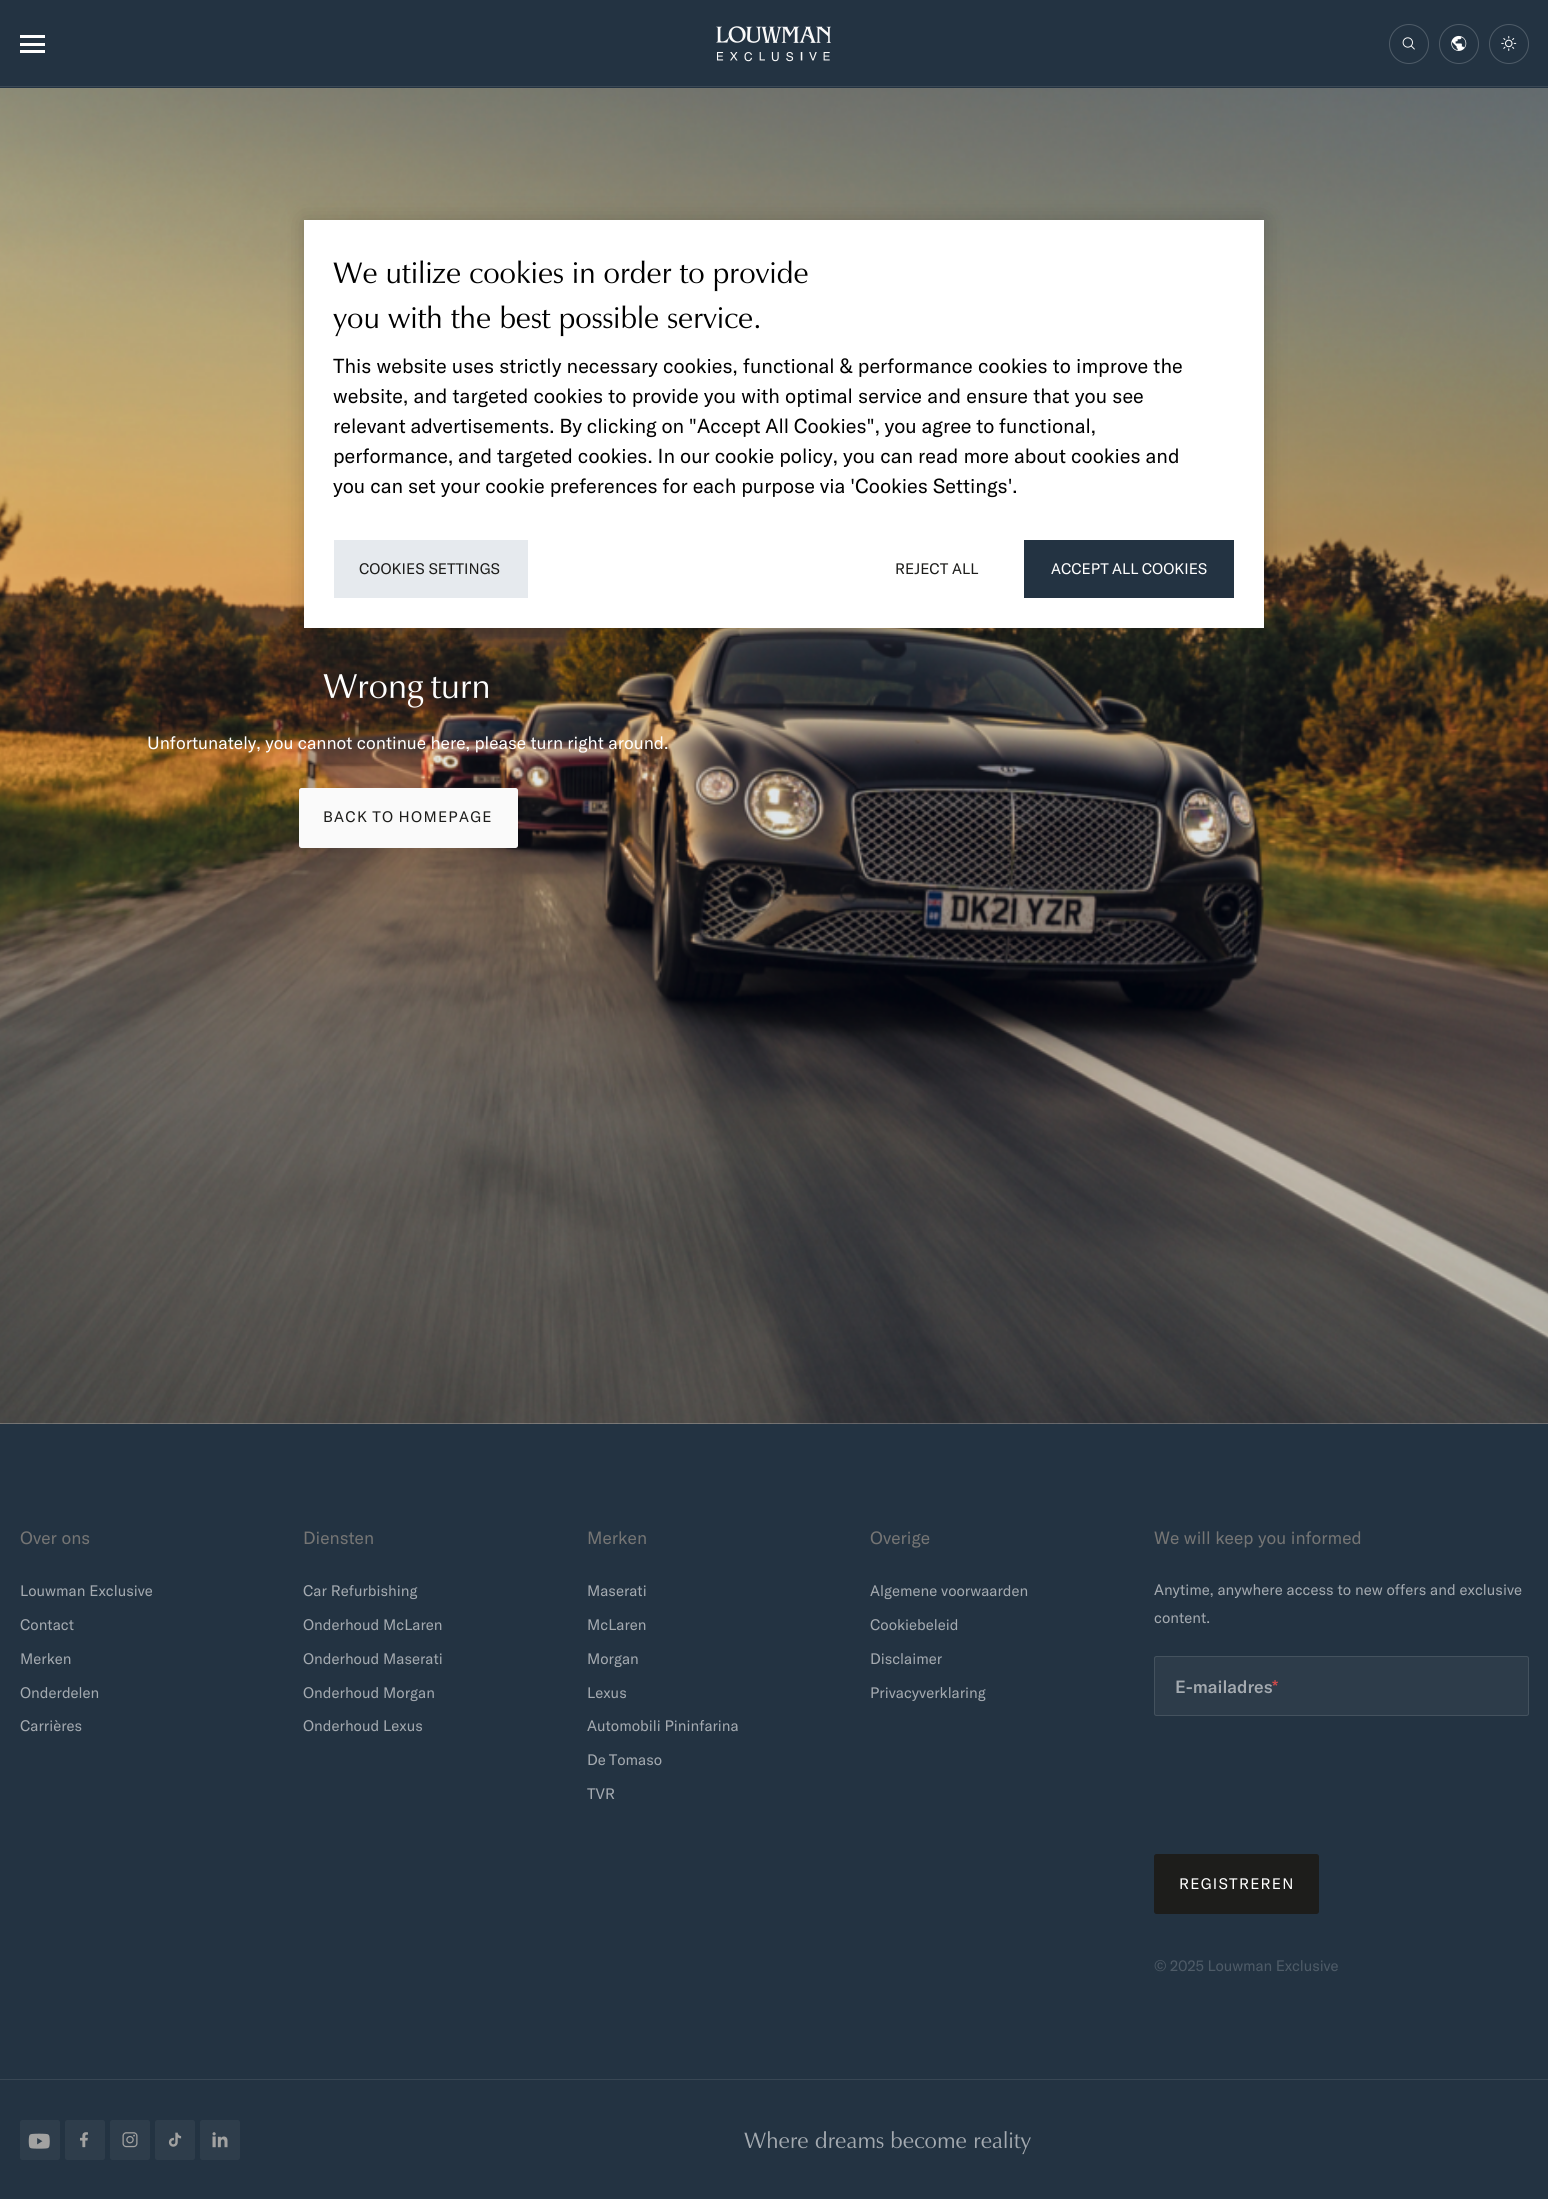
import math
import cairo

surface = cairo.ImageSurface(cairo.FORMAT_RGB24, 1548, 2199)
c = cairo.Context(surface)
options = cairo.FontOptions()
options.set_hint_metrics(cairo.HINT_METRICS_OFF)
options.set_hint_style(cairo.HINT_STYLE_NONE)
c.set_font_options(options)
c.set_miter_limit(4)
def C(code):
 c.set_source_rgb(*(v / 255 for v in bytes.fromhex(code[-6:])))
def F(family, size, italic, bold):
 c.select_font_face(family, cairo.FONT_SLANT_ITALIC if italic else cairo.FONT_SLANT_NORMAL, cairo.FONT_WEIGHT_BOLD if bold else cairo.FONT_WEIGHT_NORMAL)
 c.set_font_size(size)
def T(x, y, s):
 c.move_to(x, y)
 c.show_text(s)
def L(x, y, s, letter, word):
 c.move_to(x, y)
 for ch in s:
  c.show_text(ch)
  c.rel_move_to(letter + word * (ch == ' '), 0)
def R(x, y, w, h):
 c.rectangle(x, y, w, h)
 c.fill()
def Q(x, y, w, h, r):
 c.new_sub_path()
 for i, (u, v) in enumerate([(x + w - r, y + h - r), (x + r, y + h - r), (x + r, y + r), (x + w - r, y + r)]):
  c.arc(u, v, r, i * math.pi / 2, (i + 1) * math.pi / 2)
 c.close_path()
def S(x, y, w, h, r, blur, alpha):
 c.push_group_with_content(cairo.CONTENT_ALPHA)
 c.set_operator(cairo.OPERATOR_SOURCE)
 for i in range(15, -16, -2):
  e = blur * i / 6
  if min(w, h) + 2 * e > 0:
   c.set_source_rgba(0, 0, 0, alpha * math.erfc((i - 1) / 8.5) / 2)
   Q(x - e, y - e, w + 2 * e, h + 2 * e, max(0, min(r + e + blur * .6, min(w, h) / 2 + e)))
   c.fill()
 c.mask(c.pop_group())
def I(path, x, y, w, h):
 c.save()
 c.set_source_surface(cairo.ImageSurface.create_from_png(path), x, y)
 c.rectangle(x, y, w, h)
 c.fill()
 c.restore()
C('ffffff')
c.paint()
I('5.png',0,88,1548,1336)
C('000000')
S(304,220,960,408,0,11,.2)
C('ffffff')
R(304,220,960,408)
F('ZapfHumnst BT',30,0,0)
C('000000')
L(333,283,'We utilize cookies in order to provide',0,-.25)
T(333,328,'you with the best possible service.')
F('GT America',20,0,0)
T(333,373,'This website uses strictly necessary cookies, functional & performance cookies to improve the')
T(333,403,'website, and targeted cookies to provide you with optimal service and ensure that you see')
L(333,433,'relevant advertisements. By clicking on "Accept All Cookies", you agree to functional,',0,-.5)
L(333,463,'performance, and targeted cookies. In our cookie policy, you can read more about cookies and',0,-.2)
L(333,493,'you can set your cookie preferences for each purpose via \'Cookies Settings\'.',0,-.25)
C('e6eaee')
R(334,540,194,58)
F('GT America',15,0,0)
C('1d1d1b')
T(359,574,'COOKIES SETTINGS')
T(895,574,'REJECT ALL')
C('233342')
R(1024,540,210,58)
C('ffffff')
L(1051,574,'ACCEPT ALL COOKIES',0,-.5)
C('233342')
R(0,0,1548,88)
C('394754')
R(0,86,1548,1)
C('ffffff')
R(20,43,25,3)
R(20,35,25,3)
R(20,50,25,3)
I('1.png',716,26,115,36)
c.arc(1409,44,19.5,0,2 * math.pi)
C('4e5b67')
c.set_line_width(1)
c.stroke()
I('2.png',1402,37,13,13)
c.arc(1459,44,19.5,0,2 * math.pi)
c.stroke()
I('3.png',1451,35,16,16)
c.arc(1509,44,19.5,0,2 * math.pi)
c.stroke()
I('4.png',1501,36,16,15)
F('ZapfHumnst BT',35,0,0)
C('ffffff')
L(323,698,'Wrong turn',0,-2)
F('GT America',17.5,0,0)
L(147,749,'Unfortunately, you cannot continue here, please turn right around.',0,-.25)
C('fafafa')
Q(299,788,219,60,2.5)
c.fill()
F('GT America',15,0,0)
C('1d1d1b')
L(323,822,'BACK TO HOMEPAGE',1.25,-1)
C('233342')
R(0,1424,1548,775)
F('GT America',17.5,0,0)
C('757574')
T(20,1544,'Over ons')
F('GT America',15,0,0)
C('a4aab0')
T(20,1596,'Louwman Exclusive')
T(20,1630,'Contact')
T(20,1664,'Merken')
T(20,1698,'Onderdelen')
T(20,1731,'Carrières')
F('GT America',17.5,0,0)
C('757574')
T(303,1544,'Diensten')
F('GT America',15,0,0)
C('a4aab0')
T(303,1596,'Car Refurbishing')
T(303,1630,'Onderhoud McLaren')
T(303,1664,'Onderhoud Maserati')
T(303,1698,'Onderhoud Morgan')
T(303,1731,'Onderhoud Lexus')
F('GT America',17.5,0,0)
C('757574')
T(587,1544,'Merken')
F('GT America',15,0,0)
C('a4aab0')
T(587,1596,'Maserati')
T(587,1630,'McLaren')
T(587,1664,'Morgan')
T(587,1698,'Lexus')
T(587,1731,'Automobili Pininfarina')
L(587,1765,'De Tomaso',0,-1)
T(587,1799,'TVR')
F('GT America',17.5,0,0)
C('757574')
T(870,1544,'Overige')
F('GT America',15,0,0)
C('a4aab0')
T(870,1596,'Algemene voorwaarden')
T(870,1630,'Cookiebeleid')
T(870,1664,'Disclaimer')
T(870,1698,'Privacyverklaring')
F('GT America',17.5,0,0)
C('757574')
T(1154,1544,'We will keep you informed')
F('GT America',15,0,0)
C('a4aab0')
T(1154,1595,'Anytime, anywhere access to new offers and exclusive')
T(1154,1623,'content.')
C('2d3c4a')
Q(1154.5,1656.5,374,59,2)
c.fill_preserve()
C('44525e')
c.stroke()
F('GT America Medium',17.5,0,0)
C('a4aab0')
T(1175,1693,'E-mailadres')
C('d64a4a')
T(1272,1693,'*')
C('1d1d1b')
Q(1154,1854,165,60,2.5)
c.fill()
F('GT America',15,0,0)
C('ffffff')
L(1179,1889,'REGISTREREN',1.25,0)
C('4e5b67')
L(1154,1971,'© 2025 Louwman Exclusive',-.1,-.2)
C('394754')
R(0,2079,1548,1)
C('2e3d4b')
Q(20,2120,40,40,2.5)
c.fill()
I('6.png',28,2133,22,16)
Q(65,2120,40,40,2.5)
c.fill()
I('7.png',80,2132,8,16)
Q(110,2120,40,40,2.5)
c.fill()
I('8.png',122,2132,16,16)
Q(155,2120,40,40,2.5)
c.fill()
I('9.png',168,2132,14,15)
Q(200,2120,40,40,2.5)
c.fill()
I('10.png',212,2132,16,16)
F('ZapfHumnst BT',22.5,0,0)
C('a4aab0')
L(744,2148,'Where dreams become reality',.05,0)
surface.write_to_png('o.png')
